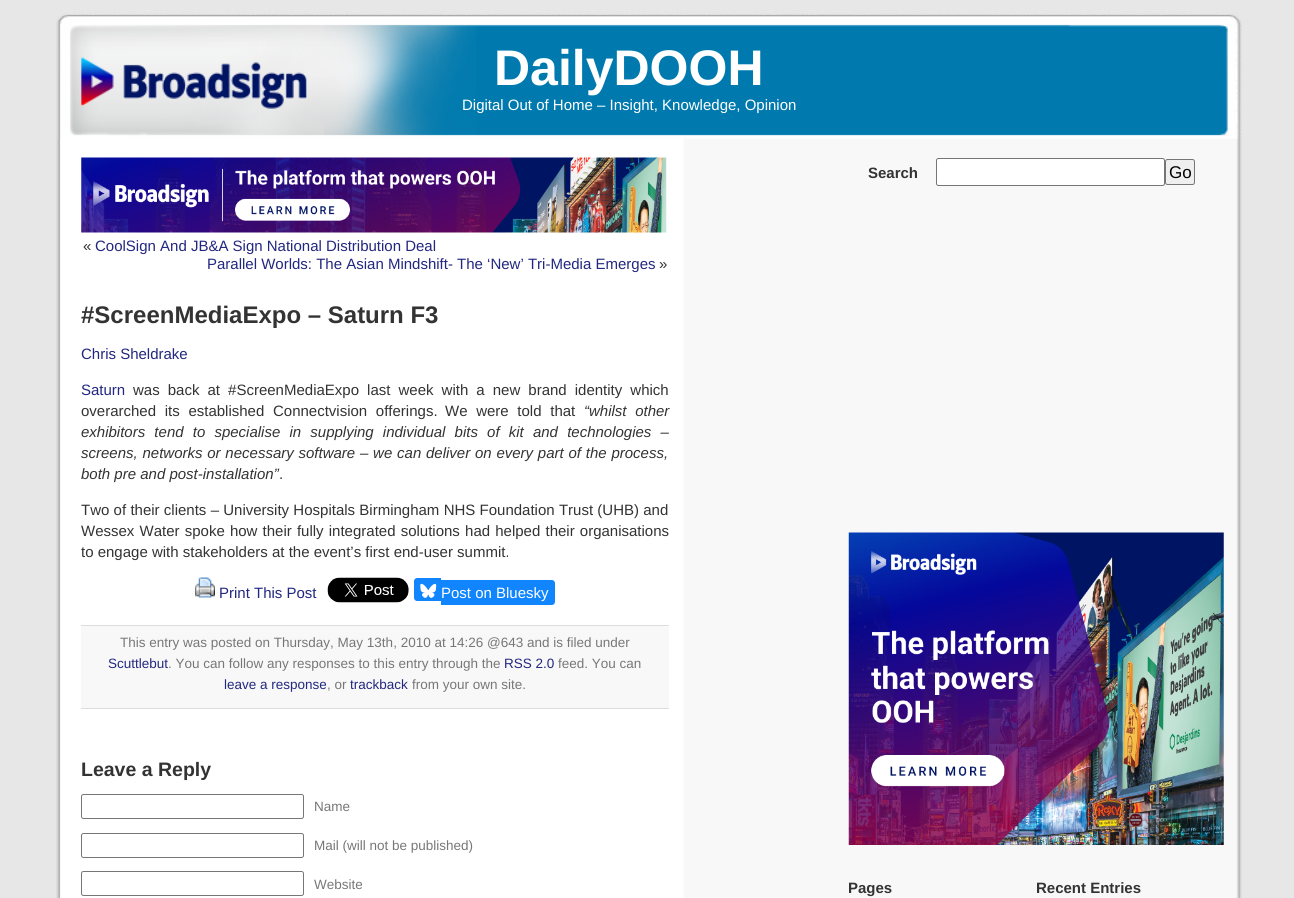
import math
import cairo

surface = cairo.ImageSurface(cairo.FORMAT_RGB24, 1294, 898)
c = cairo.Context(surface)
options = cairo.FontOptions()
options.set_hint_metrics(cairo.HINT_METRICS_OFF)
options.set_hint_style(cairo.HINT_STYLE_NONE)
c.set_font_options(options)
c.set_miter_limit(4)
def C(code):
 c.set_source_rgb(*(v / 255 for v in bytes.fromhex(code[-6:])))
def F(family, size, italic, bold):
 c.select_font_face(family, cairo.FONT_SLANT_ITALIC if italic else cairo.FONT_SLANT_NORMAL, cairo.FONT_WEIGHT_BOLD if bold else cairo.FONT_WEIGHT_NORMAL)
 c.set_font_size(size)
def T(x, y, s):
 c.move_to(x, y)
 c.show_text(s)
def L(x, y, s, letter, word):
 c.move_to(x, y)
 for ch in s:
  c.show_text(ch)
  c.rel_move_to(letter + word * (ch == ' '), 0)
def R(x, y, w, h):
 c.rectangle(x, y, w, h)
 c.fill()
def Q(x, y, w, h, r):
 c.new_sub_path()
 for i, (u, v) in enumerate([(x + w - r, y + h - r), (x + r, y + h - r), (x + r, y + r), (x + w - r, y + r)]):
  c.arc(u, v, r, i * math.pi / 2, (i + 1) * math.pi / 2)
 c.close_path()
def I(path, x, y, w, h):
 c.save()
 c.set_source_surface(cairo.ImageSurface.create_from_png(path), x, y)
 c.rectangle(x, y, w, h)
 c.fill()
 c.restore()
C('e7e7e7')
c.paint()
I('1.png',56,138,1186,760)
I('2.png',56,10,1186,129)
F('Liberation Sans',50,0,1)
C('ffffff')
T(494,85,'DailyDOOH')
F('Liberation Sans',15,0,0)
T(462,110,'Digital Out of Home – Insight, Knowledge, Opinion')
I('3.png',81,157,586,76)
C('333333')
T(83,251,'«')
C('22277f')
T(95,251,'CoolSign And JB&A Sign National Distribution Deal')
T(207,269,'Parallel Worlds: The Asian Mindshift- The ‘New’ Tri-Media Emerges')
C('333333')
T(659,269,'»')
F('Liberation Sans',24,0,1)
T(81,323,'#ScreenMediaExpo – Saturn F3')
F('Liberation Sans',15,0,0)
C('22277f')
T(81,359,'Chris Sheldrake')
T(81,395,'Saturn')
C('333333')
L(133,395,'was back at #ScreenMediaExpo last week with a new brand identity which',0,3.9)
L(81,416,'overarched its established Connectvision offerings.',0,4.5)
L(445,416,'We were told that',0,4.5)
F('Liberation Sans',15,1,0)
L(584,416,'“whilst other',0,4.5)
L(81,437,'exhibitors tend to specialise in supplying individual bits of kit and technologies –',0,5)
L(81,458,'screens, networks or necessary software – we can deliver on every part of the process,',0,.6)
T(81,479,'both pre and post-installation”')
F('Liberation Sans',15,0,0)
T(279,479,'.')
L(81,515,'Two of their clients – University Hospitals Birmingham NHS Foundation Trust (UHB) and',0,.1)
L(81,536,'Wessex Water spoke how their fully integrated solutions had helped their organisations',0,1)
T(81,557,'to engage with stakeholders at the event’s first end-user summit.')
I('4.png',195,577,20,21)
C('22277f')
T(219,598,'Print This Post')
I('5.png',327,577,82,26)
C('1185fe')
c.new_path()
c.move_to(417,578)
c.line_to(441,578)
c.line_to(441,601)
c.line_to(417,601)
c.curve_to(415.5,601,414,599.5,414,598)
c.line_to(414,581)
c.curve_to(414,579.5,415.5,578,417,578)
c.close_path()
c.fill()
I('6.png',420,583,17,15)
c.new_path()
c.move_to(441,580)
c.line_to(552,580)
c.curve_to(553.5,580,555,581.5,555,583)
c.line_to(555,602)
c.curve_to(555,603.5,553.5,605,552,605)
c.line_to(441,605)
c.close_path()
c.fill()
C('ffffff')
T(441,598,'Post on Bluesky')
C('f8f8f8')
R(81,626,588,82)
C('dddddd')
R(81,625,588,1)
R(81,708,588,1)
F('Liberation Sans',13.5,0,0)
C('777777')
T(120,647,'This entry was posted on Thursday, May 13th, 2010 at 14:26 @643 and is filed under')
C('22277f')
T(108,668,'Scuttlebut')
C('777777')
T(168,668,'. You can follow any responses to this entry through the')
C('22277f')
T(504,668,'RSS 2.0')
C('777777')
T(558,668,'feed. You can')
C('22277f')
T(224,689,'leave a response')
C('777777')
T(327,689,', or')
C('22277f')
T(350,689,'trackback')
C('777777')
T(412,689,'from your own site.')
F('Liberation Sans',19.5,0,1)
C('333333')
T(81,776,'Leave a Reply')
Q(81.5,794.5,222,24,2)
C('767676')
c.set_line_width(1)
c.stroke()
F('Liberation Sans',13.5,0,0)
C('777777')
T(314,811,'Name')
Q(81.5,833.5,222,24,2)
C('767676')
c.stroke()
C('777777')
T(314,850,'Mail (will not be published)')
Q(81.5,871.5,222,24,2)
C('767676')
c.stroke()
C('777777')
T(314,889,'Website')
F('Liberation Sans',15,0,1)
C('333333')
T(868,178,'Search')
C('ffffff')
Q(936.5,158.5,228,27,2)
c.fill_preserve()
C('767676')
c.stroke()
C('efefef')
Q(1165.5,159.5,29,25,2)
c.fill_preserve()
C('767676')
c.stroke()
F('Liberation Sans',17,0,0)
C('000000')
T(1169,178,'Go')
I('7.png',848,532,376,313)
F('Liberation Sans',15,0,1)
C('333333')
T(848,893,'Pages')
T(1036,893,'Recent Entries')
surface.write_to_png('o.png')
